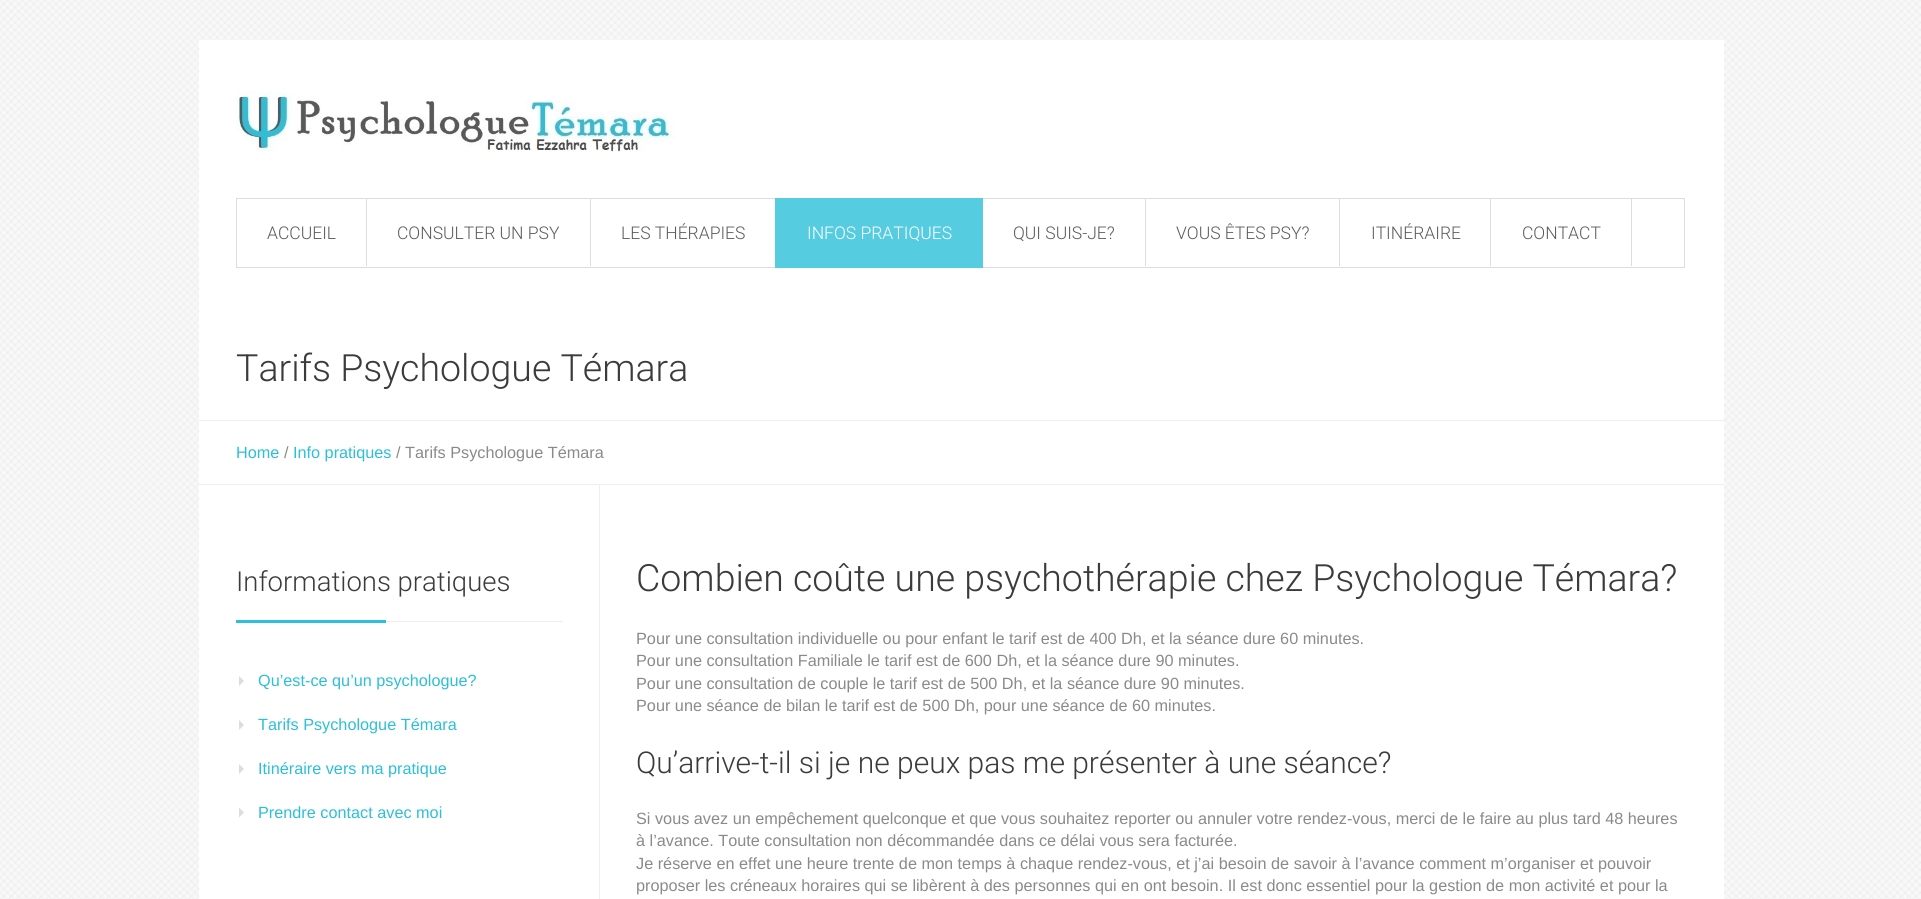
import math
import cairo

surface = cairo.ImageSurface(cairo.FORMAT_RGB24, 1921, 899)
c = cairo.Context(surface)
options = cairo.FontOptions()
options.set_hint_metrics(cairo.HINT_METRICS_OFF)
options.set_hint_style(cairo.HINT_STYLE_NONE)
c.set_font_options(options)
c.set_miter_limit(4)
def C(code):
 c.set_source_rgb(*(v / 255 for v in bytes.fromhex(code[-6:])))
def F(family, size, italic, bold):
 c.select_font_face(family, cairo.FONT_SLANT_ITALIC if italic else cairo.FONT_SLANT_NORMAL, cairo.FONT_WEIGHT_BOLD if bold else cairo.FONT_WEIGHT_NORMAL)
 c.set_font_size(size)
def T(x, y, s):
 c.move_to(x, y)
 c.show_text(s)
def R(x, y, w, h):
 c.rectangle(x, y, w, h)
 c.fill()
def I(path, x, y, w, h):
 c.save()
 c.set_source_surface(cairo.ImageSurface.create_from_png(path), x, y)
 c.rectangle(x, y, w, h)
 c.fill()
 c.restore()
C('ffffff')
c.paint()
I('1.png',0,0,1921,899)
C('ffffff')
R(199,40,1525,859)
I('2.png',236,91,440,61)
c.rectangle(236.5,198.5,1448,69)
C('dddddd')
c.set_line_width(1)
c.stroke()
R(366,199,1,67)
F('Roboto Light',17.5,0,0)
C('5b5b5b')
T(267,239,'ACCUEIL')
C('dddddd')
R(590,199,1,67)
C('5b5b5b')
T(397,239,'CONSULTER UN PSY')
T(621,239,'LES THÉRAPIES')
C('56cce1')
R(775,198,208,70)
C('ffffff')
T(807,239,'INFOS PRATIQUES')
C('dddddd')
R(1145,199,1,67)
C('5b5b5b')
T(1013,239,'QUI SUIS-JE?')
C('dddddd')
R(1339,199,1,67)
C('5b5b5b')
T(1176,239,'VOUS ÊTES PSY?')
C('dddddd')
R(1490,199,1,67)
C('5b5b5b')
T(1371,239,'ITINÉRAIRE')
C('dddddd')
R(1631,199,1,67)
C('5b5b5b')
T(1522,239,'CONTACT')
F('Roboto Light',37.5,0,0)
C('3b3b3b')
T(236,381,'Tarifs Psychologue Témara')
C('eeeeee')
R(199,420,1525,1)
F('Liberation Sans',16.25,0,0)
C('2cbfd9')
T(236,458,'Home')
C('8a8a8a')
T(284,458,'/')
C('2cbfd9')
T(293,458,'Info pratiques')
C('8a8a8a')
T(396,458,'/ Tarifs Psychologue Témara')
C('eeeeee')
R(599,484,1,415)
R(199,484,1525,1)
F('Roboto Light',27.5,0,0)
C('3b3b3b')
T(236,591,'Informations pratiques')
C('2cbfd9')
R(236,620,150,3)
C('eeeeee')
R(386,621,177,1)
C('dddddd')
c.new_path()
c.move_to(239,686)
c.line_to(239,676)
c.line_to(244,681)
c.close_path()
c.fill()
F('Liberation Sans',16.25,0,0)
C('2cbfd9')
T(258,686,'Qu’est-ce qu’un psychologue?')
C('dddddd')
c.new_path()
c.move_to(239,730)
c.line_to(239,720)
c.line_to(244,725)
c.close_path()
c.fill()
C('2cbfd9')
T(258,730,'Tarifs Psychologue Témara')
C('dddddd')
c.new_path()
c.move_to(239,774)
c.line_to(239,764)
c.line_to(244,769)
c.close_path()
c.fill()
C('2cbfd9')
T(258,774,'Itinéraire vers ma pratique')
C('dddddd')
c.new_path()
c.move_to(239,817.5)
c.line_to(239,807.5)
c.line_to(244,812.5)
c.close_path()
c.fill()
C('2cbfd9')
T(258,818,'Prendre contact avec moi')
F('Roboto Light',37.5,0,0)
C('3b3b3b')
T(636,591,'Combien coûte une psychothérapie chez Psychologue Témara?')
F('Liberation Sans',16.25,0,0)
C('8a8a8a')
T(636,644,'Pour une consultation individuelle ou pour enfant le tarif est de 400 Dh, et la séance dure 60 minutes.')
T(636,666,'Pour une consultation Familiale le tarif est de 600 Dh, et la séance dure 90 minutes.')
T(636,689,'Pour une consultation de couple le tarif est de 500 Dh, et la séance dure 90 minutes.')
T(636,711,'Pour une séance de bilan le tarif est de 500 Dh, pour une séance de 60 minutes.')
F('Roboto Light',30,0,0)
C('3b3b3b')
T(636,773,'Qu’arrive-t-il si je ne peux pas me présenter à une séance?')
F('Liberation Sans',16.25,0,0)
C('8a8a8a')
T(636,824,'Si vous avez un empêchement quelconque et que vous souhaitez reporter ou annuler votre rendez-vous, merci de le faire au plus tard 48 heures')
T(636,846,'à l’avance. Toute consultation non décommandée dans ce délai vous sera facturée.')
T(636,869,'Je réserve en effet une heure trente de mon temps à chaque rendez-vous, et j’ai besoin de savoir à l’avance comment m’organiser et pouvoir')
T(636,891,'proposer les créneaux horaires qui se libèrent à des personnes qui en ont besoin. Il est donc essentiel pour la gestion de mon activité et pour la')
surface.write_to_png('o.png')
